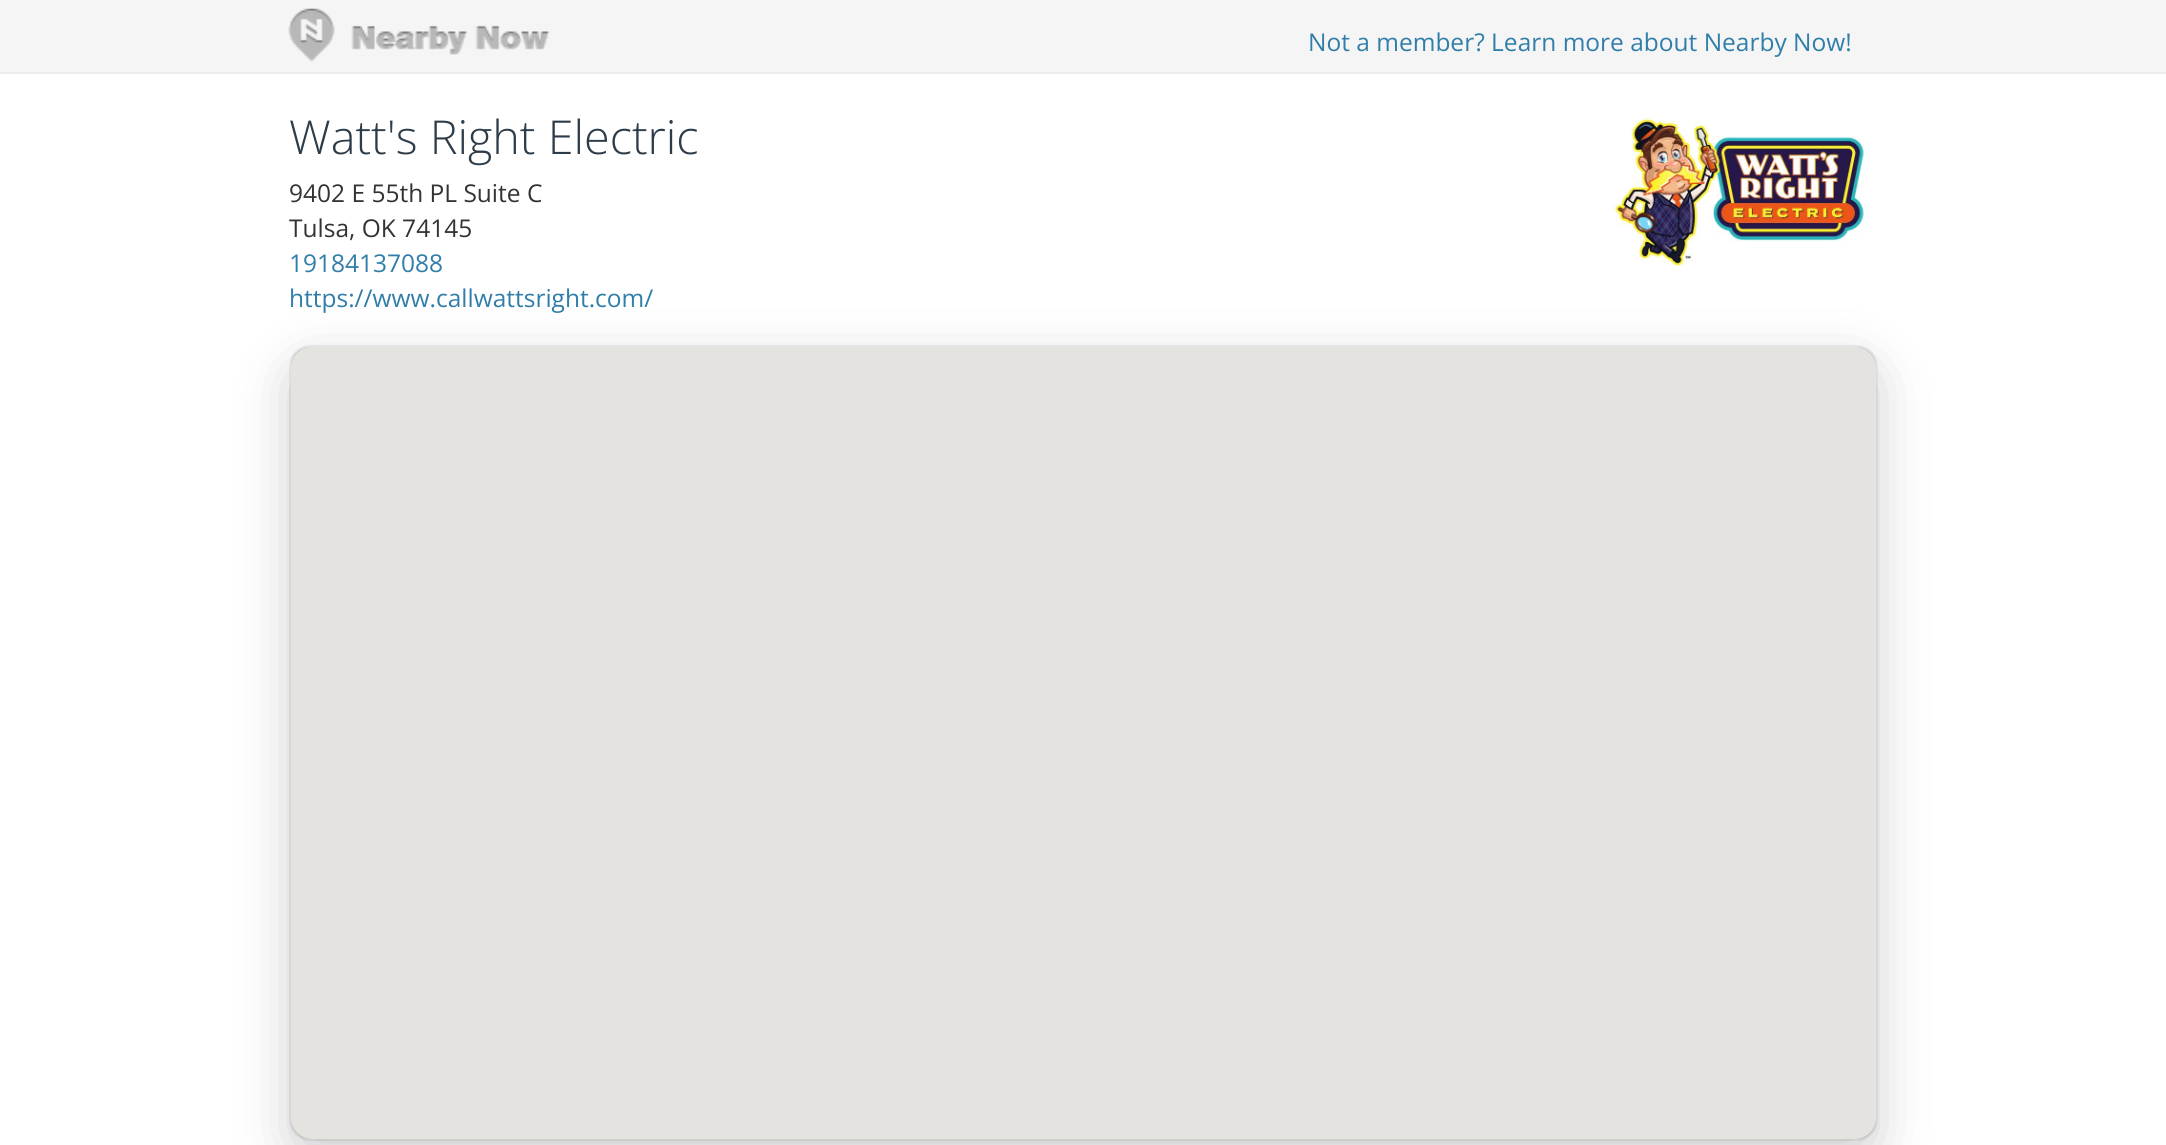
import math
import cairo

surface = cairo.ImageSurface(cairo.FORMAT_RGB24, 2166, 1145)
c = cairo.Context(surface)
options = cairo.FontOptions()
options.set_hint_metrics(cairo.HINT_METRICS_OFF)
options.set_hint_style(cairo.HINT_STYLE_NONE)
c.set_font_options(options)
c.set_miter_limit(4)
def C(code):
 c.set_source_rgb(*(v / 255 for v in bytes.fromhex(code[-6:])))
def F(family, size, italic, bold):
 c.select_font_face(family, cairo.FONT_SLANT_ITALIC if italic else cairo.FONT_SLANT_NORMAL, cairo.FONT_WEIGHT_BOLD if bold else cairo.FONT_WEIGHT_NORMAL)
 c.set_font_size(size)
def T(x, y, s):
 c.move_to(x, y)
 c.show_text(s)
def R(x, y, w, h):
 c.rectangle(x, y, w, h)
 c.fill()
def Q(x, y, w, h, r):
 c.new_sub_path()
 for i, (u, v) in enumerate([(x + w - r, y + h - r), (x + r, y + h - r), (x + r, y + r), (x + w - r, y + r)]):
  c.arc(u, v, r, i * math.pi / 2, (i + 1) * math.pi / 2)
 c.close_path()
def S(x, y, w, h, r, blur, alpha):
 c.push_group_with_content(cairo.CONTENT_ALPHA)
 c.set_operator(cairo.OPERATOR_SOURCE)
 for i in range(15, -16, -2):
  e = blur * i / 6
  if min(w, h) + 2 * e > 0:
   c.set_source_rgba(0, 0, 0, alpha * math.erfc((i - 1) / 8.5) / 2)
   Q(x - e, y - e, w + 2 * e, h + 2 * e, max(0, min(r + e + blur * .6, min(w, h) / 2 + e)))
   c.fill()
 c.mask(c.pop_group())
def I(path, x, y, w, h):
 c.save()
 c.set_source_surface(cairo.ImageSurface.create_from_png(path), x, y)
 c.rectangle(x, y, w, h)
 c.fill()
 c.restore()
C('ffffff')
c.paint()
C('eaeced')
c.new_path()
c.move_to(0,72)
c.line_to(0,74)
c.line_to(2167,74)
c.line_to(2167,2)
c.line_to(2166,2)
c.line_to(2166,72)
c.close_path()
c.fill()
C('f5f5f5')
R(0,0,2166,72)
I('1.png',288,8,262,54)
F('Open Sans',24.5,0,0)
C('307ea9')
T(1308,51,'Not a member? Learn more about Nearby Now!')
F('Open Sans Light',46.75,0,0)
C('2d3c48')
T(289,154,'Watt\'s Right Electric')
F('Open Sans',24.5,0,0)
C('333333')
T(289,202,'9402 E 55th PL Suite C')
T(289,237,'Tulsa, OK 74145')
C('307ea9')
T(289,272,'19184137088')
T(289,307,'https://www.callwattsright.com/')
I('2.png',1609,113,260,153)
C('cdd0d4')
Q(290,346,1587,794,20)
c.fill_preserve()
C('f0f0f0')
c.stroke()
C('000000')
S(291,364,1585,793,21,26,.2)
C('e5e3df')
Q(291,347,1585,792,21)
c.fill()
surface.write_to_png('o.png')
